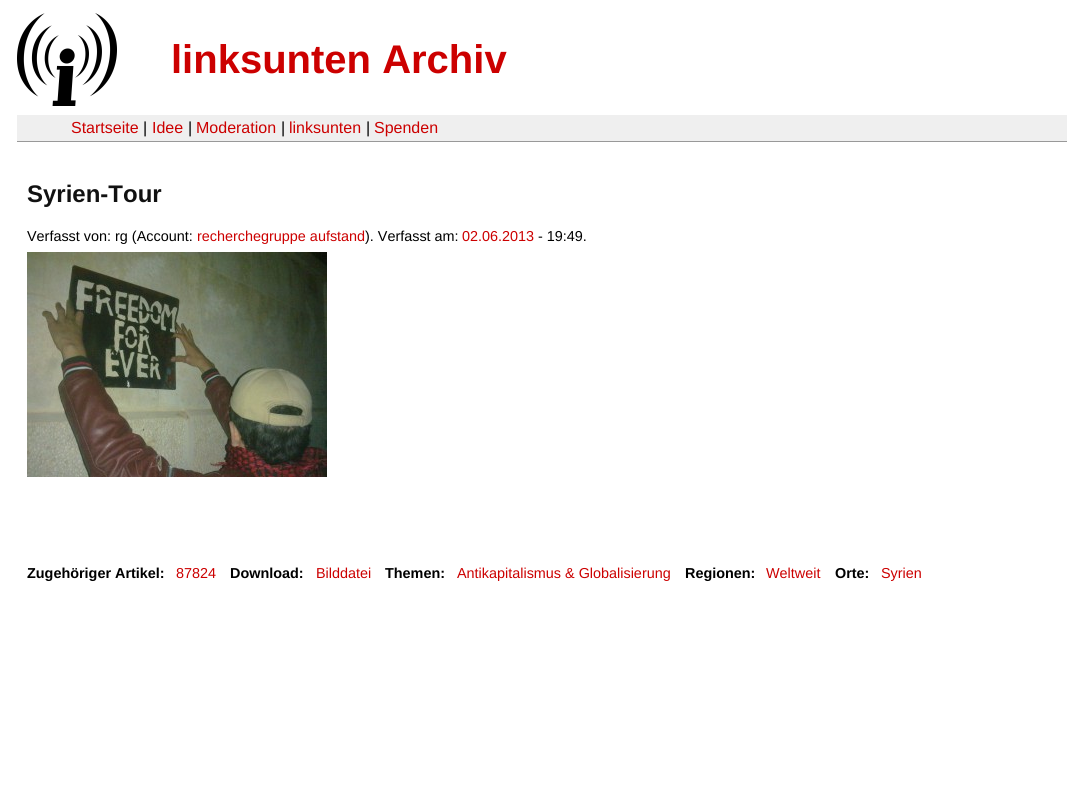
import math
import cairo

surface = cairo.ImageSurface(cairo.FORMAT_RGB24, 1084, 805)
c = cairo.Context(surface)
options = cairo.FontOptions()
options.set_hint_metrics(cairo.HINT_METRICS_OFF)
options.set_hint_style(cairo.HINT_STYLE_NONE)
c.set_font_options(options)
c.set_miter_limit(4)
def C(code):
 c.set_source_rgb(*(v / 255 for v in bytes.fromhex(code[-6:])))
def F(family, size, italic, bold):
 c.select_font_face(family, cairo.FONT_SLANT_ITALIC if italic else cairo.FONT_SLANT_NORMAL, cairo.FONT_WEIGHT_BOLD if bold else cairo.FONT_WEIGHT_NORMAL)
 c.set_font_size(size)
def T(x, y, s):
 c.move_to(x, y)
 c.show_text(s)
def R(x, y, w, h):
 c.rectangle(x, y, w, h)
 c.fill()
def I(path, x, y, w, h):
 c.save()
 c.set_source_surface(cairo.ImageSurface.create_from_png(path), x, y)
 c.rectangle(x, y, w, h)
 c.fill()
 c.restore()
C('ffffff')
c.paint()
I('1.png',17,13,100,93)
F('Liberation Sans',40,0,1)
C('cc0000')
T(171,73,'linksunten Archiv')
C('efefef')
R(17,115,1050,26)
C('999999')
R(17,141,1050,1)
F('Liberation Sans',16,0,0)
C('cc0000')
T(71,133,'Startseite')
C('000000')
T(143,133,'|')
C('cc0000')
T(152,133,'Idee')
C('000000')
T(188,133,'|')
C('cc0000')
T(196,133,'Moderation')
C('000000')
T(281,133,'|')
C('cc0000')
T(289,133,'linksunten')
C('000000')
T(366,133,'|')
C('cc0000')
T(374,133,'Spenden')
F('Liberation Sans',24,0,1)
C('111111')
T(27,202,'Syrien-Tour')
F('Liberation Sans',14.4,0,0)
C('000000')
T(27,241,'Verfasst von: rg (Account:')
C('cc0000')
T(197,241,'recherchegruppe aufstand')
C('000000')
T(365,241,'). Verfasst am:')
C('cc0000')
T(462,241,'02.06.2013')
C('000000')
T(538,241,'- 19:49.')
I('2.png',27,252,300,225)
F('Liberation Sans',14.4,0,1)
T(27,578,'Zugehöriger Artikel:')
F('Liberation Sans',14.4,0,0)
C('cc0000')
T(176,578,'87824')
F('Liberation Sans',14.4,0,1)
C('000000')
T(230,578,'Download:')
F('Liberation Sans',14.4,0,0)
C('cc0000')
T(316,578,'Bilddatei')
F('Liberation Sans',14.4,0,1)
C('000000')
T(385,578,'Themen:')
F('Liberation Sans',14.4,0,0)
C('cc0000')
T(457,578,'Antikapitalismus & Globalisierung')
F('Liberation Sans',14.4,0,1)
C('000000')
T(685,578,'Regionen:')
F('Liberation Sans',14.4,0,0)
C('cc0000')
T(766,578,'Weltweit')
F('Liberation Sans',14.4,0,1)
C('000000')
T(835,578,'Orte:')
F('Liberation Sans',14.4,0,0)
C('cc0000')
T(881,578,'Syrien')
surface.write_to_png('o.png')
